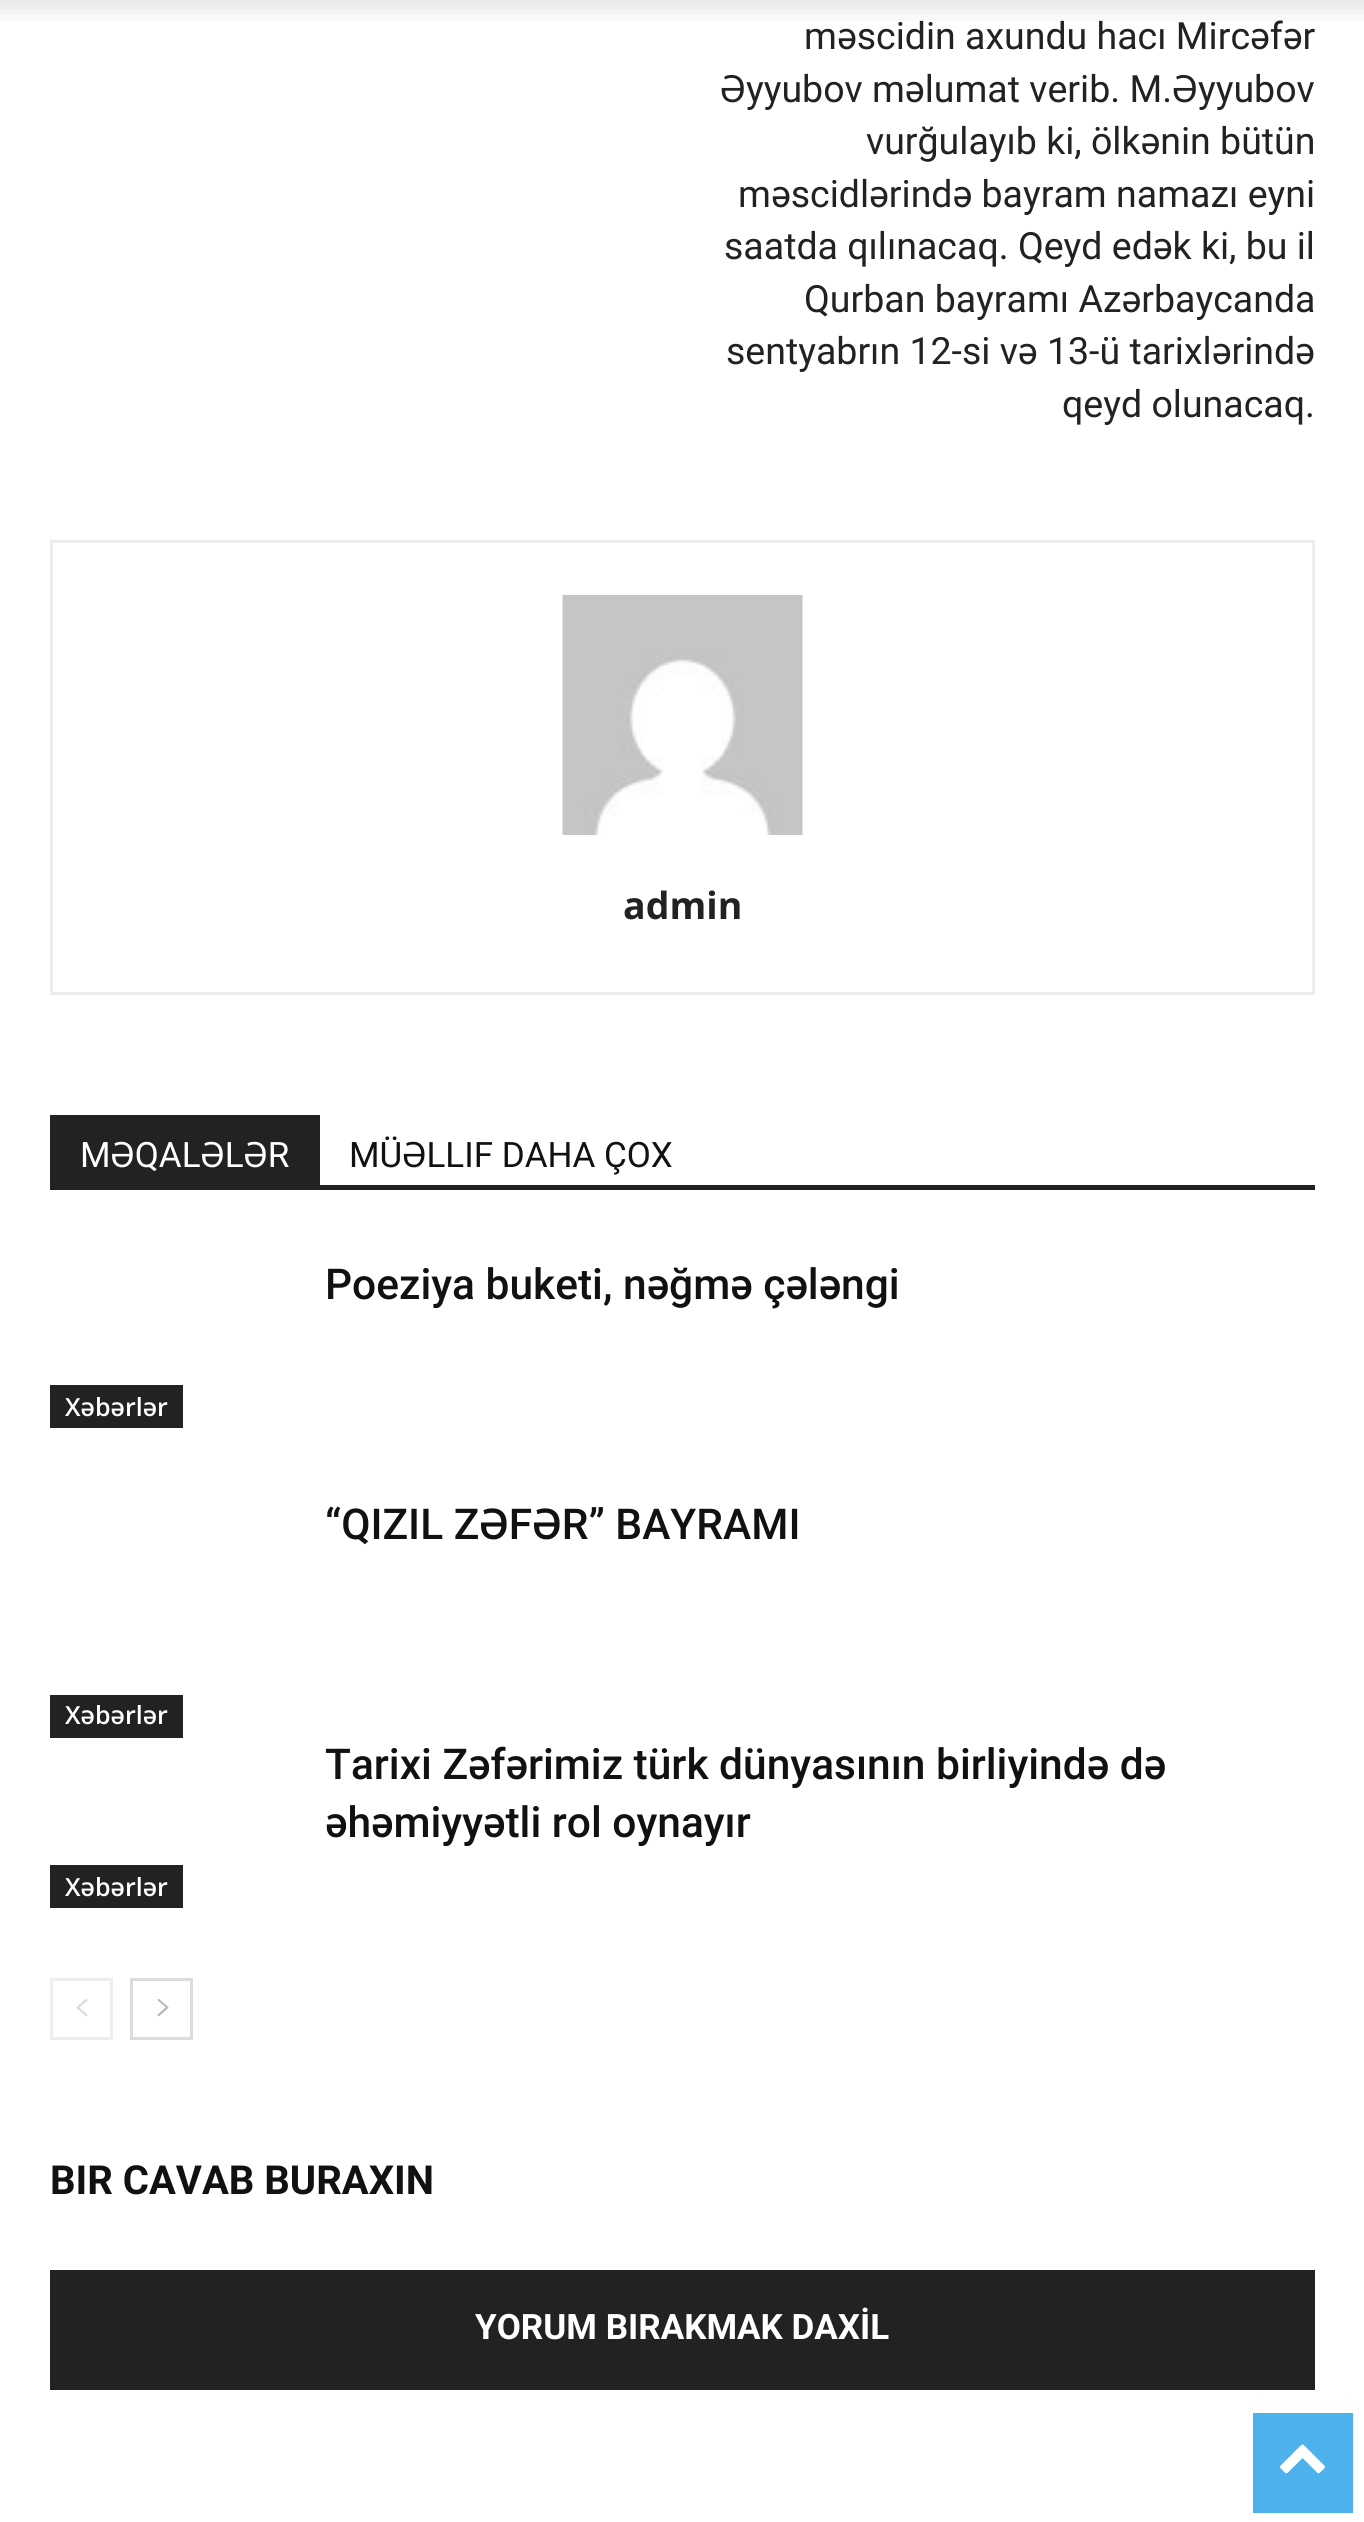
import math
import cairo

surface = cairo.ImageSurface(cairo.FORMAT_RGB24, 1364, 2522)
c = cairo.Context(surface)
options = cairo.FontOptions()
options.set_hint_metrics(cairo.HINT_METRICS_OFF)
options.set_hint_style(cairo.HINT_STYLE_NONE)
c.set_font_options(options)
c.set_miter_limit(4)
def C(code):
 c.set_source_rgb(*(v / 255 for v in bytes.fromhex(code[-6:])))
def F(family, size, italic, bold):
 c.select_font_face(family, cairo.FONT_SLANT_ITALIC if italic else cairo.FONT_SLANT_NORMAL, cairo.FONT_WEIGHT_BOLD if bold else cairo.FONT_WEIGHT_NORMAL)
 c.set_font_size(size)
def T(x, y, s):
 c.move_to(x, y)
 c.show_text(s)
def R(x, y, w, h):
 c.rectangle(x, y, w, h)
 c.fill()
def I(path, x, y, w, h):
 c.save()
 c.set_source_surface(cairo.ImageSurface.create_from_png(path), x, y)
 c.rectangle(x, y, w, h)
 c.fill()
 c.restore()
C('ffffff')
c.paint()
F('Roboto',37.5,0,0)
C('222222')
T(804,49,'məscidin axundu hacı Mircəfər')
I('1.png',0,0,1364,21)
T(720,102,'Əyyubov məlumat verib. M.Əyyubov')
T(866,154,'vurğulayıb ki, ölkənin bütün')
T(738,207,'məscidlərində bayram namazı eyni')
T(724,259,'saatda qılınacaq. Qeyd edək ki, bu il')
T(804,312,'Qurban bayramı Azərbaycanda')
T(726,364,'sentyabrın 12-si və 13-ü tarixlərində')
T(1062,417,'qeyd olunacaq.')
c.rectangle(51.5,541.5,1262,452)
C('ededed')
c.set_line_width(3)
c.stroke()
I('2.png',562,595,241,240)
F('Open Sans',37.5,0,1)
C('222222')
T(623,919,'admin')
R(50,1185,1265,5)
R(50,1115,270,70)
F('Roboto',35,0,0)
C('ffffff')
T(80,1167,'MƏQALƏLƏR')
C('111111')
T(349,1167,'MÜƏLLIF DAHA ÇOX')
F('Roboto Medium',42.5,0,0)
T(325,1299,'Poeziya buketi, nəğmə çələngi')
C('222222')
R(50,1385,133,43)
F('Open Sans SemiBold',25,0,0)
C('ffffff')
T(65,1416,'Xəbərlər')
F('Roboto Medium',42.5,0,0)
C('111111')
T(325,1539,'“QIZIL ZƏFƏR” BAYRAMI')
C('222222')
R(50,1695,133,43)
F('Open Sans SemiBold',25,0,0)
C('ffffff')
T(65,1724,'Xəbərlər')
F('Roboto Medium',42.5,0,0)
C('111111')
T(325,1779,'Tarixi Zəfərimiz türk dünyasının birliyində də')
T(325,1837,'əhəmiyyətli rol oynayır')
C('222222')
R(50,1865,133,43)
F('Open Sans SemiBold',25,0,0)
C('ffffff')
T(65,1896,'Xəbərlər')
c.rectangle(51.5,1979.5,60,59)
C('eeeeee')
c.stroke()
I('3.png',76,1998,12,19)
c.rectangle(131.5,1979.5,60,59)
C('dcdcdc')
c.stroke()
I('4.png',157,1999,12,18)
F('Roboto',40,0,1)
C('111111')
T(50,2194,'BIR CAVAB BURAXIN')
C('222222')
R(50,2270,1265,120)
F('Roboto',35,0,1)
C('ffffff')
T(475,2339,'YORUM BIRAKMAK DAXİL')
C('4db2ec')
R(1253,2413,100,100)
I('5.png',1280,2444,45,30)
surface.write_to_png('o.png')
